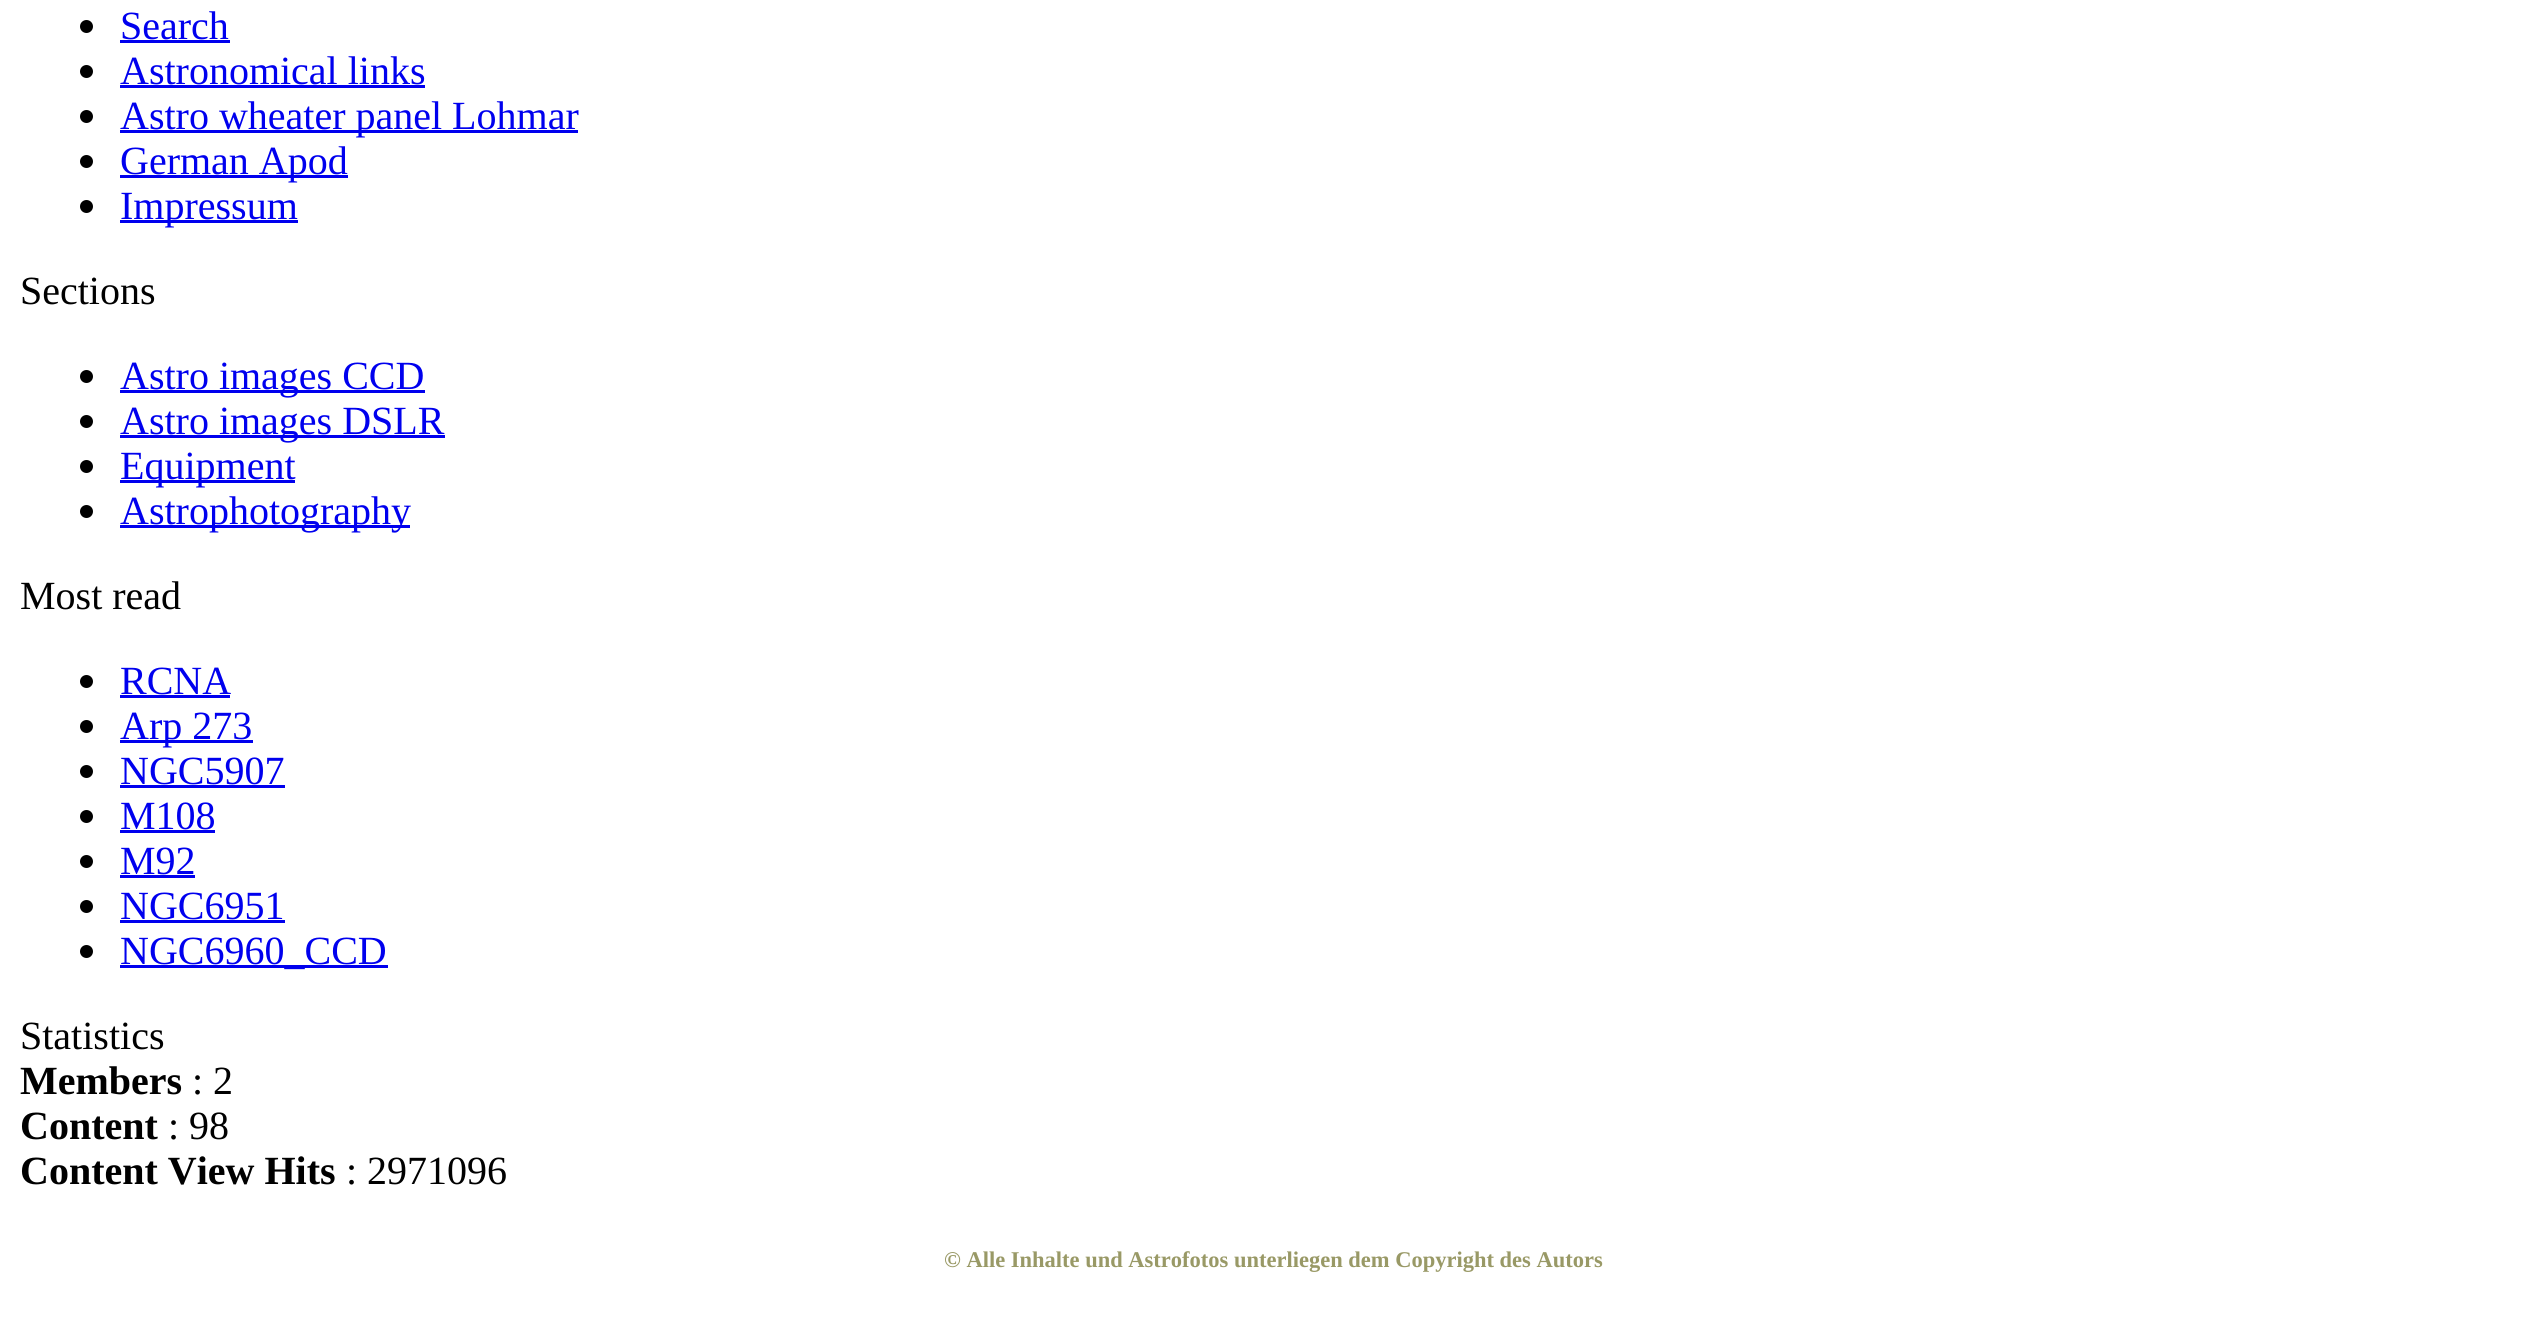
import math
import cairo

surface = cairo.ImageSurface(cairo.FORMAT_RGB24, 2546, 1323)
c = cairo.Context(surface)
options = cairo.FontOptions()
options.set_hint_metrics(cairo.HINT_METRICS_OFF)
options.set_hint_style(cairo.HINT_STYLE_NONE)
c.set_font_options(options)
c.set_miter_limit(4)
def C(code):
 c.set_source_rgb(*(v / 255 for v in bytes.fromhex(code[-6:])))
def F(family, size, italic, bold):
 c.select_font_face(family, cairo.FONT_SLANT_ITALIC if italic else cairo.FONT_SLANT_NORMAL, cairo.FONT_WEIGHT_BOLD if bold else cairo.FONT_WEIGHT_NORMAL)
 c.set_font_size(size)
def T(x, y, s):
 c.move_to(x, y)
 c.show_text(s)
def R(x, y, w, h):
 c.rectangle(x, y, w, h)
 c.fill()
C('ffffff')
c.paint()
C('000000')
c.arc(86.5,26.5,6.5,0,2 * math.pi)
c.fill()
F('Liberation Serif',40,0,0)
C('0000ee')
T(120,39,'Search')
R(120,40,110,3)
C('000000')
c.new_path()
c.arc(86.5,71.5,6.5,0,2 * math.pi)
c.fill()
C('0000ee')
T(120,84,'Astronomical links')
R(120,85,305,3)
C('000000')
c.new_path()
c.arc(86.5,116.5,6.5,0,2 * math.pi)
c.fill()
C('0000ee')
R(120,130,458,3)
T(120,129,'Astro wheater panel Lohmar')
C('000000')
c.new_path()
c.arc(86.5,161.5,6.5,0,2 * math.pi)
c.fill()
C('0000ee')
R(120,175,228,3)
T(120,174,'German Apod')
C('000000')
c.new_path()
c.arc(86.5,206.5,6.5,0,2 * math.pi)
c.fill()
C('0000ee')
R(120,220,178,3)
T(120,219,'Impressum')
C('000000')
T(20,304,'Sections')
c.new_path()
c.arc(86.5,376.5,6.5,0,2 * math.pi)
c.fill()
C('0000ee')
R(120,390,305,3)
T(120,389,'Astro images CCD')
C('000000')
c.new_path()
c.arc(86.5,421.5,6.5,0,2 * math.pi)
c.fill()
C('0000ee')
R(120,435,325,3)
T(120,434,'Astro images DSLR')
C('000000')
c.new_path()
c.arc(86.5,466.5,6.5,0,2 * math.pi)
c.fill()
C('0000ee')
R(120,480,175,3)
T(120,479,'Equipment')
C('000000')
c.new_path()
c.arc(86.5,511.5,6.5,0,2 * math.pi)
c.fill()
C('0000ee')
R(120,525,290,3)
T(120,524,'Astrophotography')
C('000000')
T(20,609,'Most read')
c.new_path()
c.arc(86.5,681.5,6.5,0,2 * math.pi)
c.fill()
C('0000ee')
T(120,694,'RCNA')
R(120,695,110,3)
C('000000')
c.new_path()
c.arc(86.5,726.5,6.5,0,2 * math.pi)
c.fill()
C('0000ee')
R(120,740,133,3)
T(120,739,'Arp 273')
C('000000')
c.new_path()
c.arc(86.5,771.5,6.5,0,2 * math.pi)
c.fill()
C('0000ee')
T(120,784,'NGC5907')
R(120,785,165,3)
C('000000')
c.new_path()
c.arc(86.5,816.5,6.5,0,2 * math.pi)
c.fill()
C('0000ee')
T(120,829,'M108')
R(120,830,95,3)
C('000000')
c.new_path()
c.arc(86.5,861.5,6.5,0,2 * math.pi)
c.fill()
C('0000ee')
T(120,874,'M92')
R(120,875,75,3)
C('000000')
c.new_path()
c.arc(86.5,906.5,6.5,0,2 * math.pi)
c.fill()
C('0000ee')
T(120,919,'NGC6951')
R(120,920,165,3)
C('000000')
c.new_path()
c.arc(86.5,951.5,6.5,0,2 * math.pi)
c.fill()
C('0000ee')
R(120,965,268,3)
T(120,964,'NGC6960_CCD')
C('000000')
T(20,1049,'Statistics')
F('Liberation Serif',40,0,1)
T(20,1094,'Members')
F('Liberation Serif',40,0,0)
T(192,1094,': 2')
F('Liberation Serif',40,0,1)
T(20,1139,'Content')
F('Liberation Serif',40,0,0)
T(168,1139,': 98')
F('Liberation Serif',40,0,1)
T(20,1184,'Content View Hits')
F('Liberation Serif',40,0,0)
T(346,1184,': 2971096')
F('Liberation Serif',22.5,0,1)
C('999966')
T(944,1267,'© Alle Inhalte und Astrofotos unterliegen dem Copyright des Autors')
surface.write_to_png('o.png')
